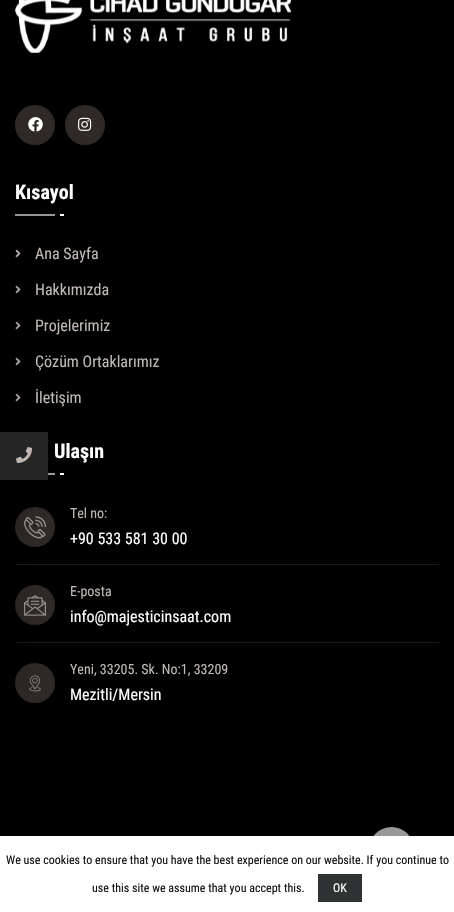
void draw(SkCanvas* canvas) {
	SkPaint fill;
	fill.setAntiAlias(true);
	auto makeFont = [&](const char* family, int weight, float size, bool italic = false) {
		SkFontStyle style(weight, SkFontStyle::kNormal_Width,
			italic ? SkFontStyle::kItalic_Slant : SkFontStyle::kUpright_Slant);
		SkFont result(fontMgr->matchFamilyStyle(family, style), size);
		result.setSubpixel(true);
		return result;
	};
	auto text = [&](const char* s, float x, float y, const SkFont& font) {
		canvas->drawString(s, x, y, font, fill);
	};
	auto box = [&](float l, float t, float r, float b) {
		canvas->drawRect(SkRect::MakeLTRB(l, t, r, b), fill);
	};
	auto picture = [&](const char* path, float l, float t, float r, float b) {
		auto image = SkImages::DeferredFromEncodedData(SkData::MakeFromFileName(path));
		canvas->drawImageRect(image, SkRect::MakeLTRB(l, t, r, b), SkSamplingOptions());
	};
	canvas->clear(0xFF000000);
	fill.setColor(0xFF999999);
	box(15, 214, 55, 216);
	fill.setColor(0xFFFFFFFF);
	box(60, 214, 64, 216);
	picture("image4.png", 15, 249, 21, 258);
	picture("image4.png", 15, 285, 21, 294);
	picture("image4.png", 15, 321, 21, 330);
	picture("image4.png", 15, 357, 21, 366);
	picture("image4.png", 15, 393, 21, 402);
	fill.setColor(0xFF999999);
	box(48, 473, 55, 475);
	fill.setColor(0xFFFFFFFF);
	box(60, 473, 64, 475);
	fill.setColor(0xFF1A1A1A);
	box(15, 564, 439, 565);
	fill.setColor(0xFF2F2A27);
	canvas->drawCircle(35, 527, 20, fill);
	picture("image5.png", 24, 516, 46, 539);
	fill.setColor(0xFF1A1A1A);
	box(15, 642, 439, 643);
	fill.setColor(0xFF2F2A27);
	canvas->drawCircle(35, 605, 20, fill);
	picture("image6.png", 24, 595, 46, 616);
	canvas->drawCircle(35, 683, 20, fill);
	picture("image7.png", 29, 675, 41, 692);
	fill.setColor(0x80000000);
	fill.setMaskFilter(SkMaskFilter::MakeBlur(kNormal_SkBlurStyle, 25));
	canvas->drawRect(SkRect::MakeLTRB(-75, 248, 0, 704), fill);
	fill.setMaskFilter(nullptr);
	fill.setColor(0xFF262626);
	box(0, 432, 48, 480);
	picture("image0.png", 16, 447, 32, 463);
	picture("image1.png", 15, 0, 291, 53);
	fill.setColor(0xFF2F2A27);
	canvas->drawCircle(35, 125, 20, fill);
	picture("image2.png", 28, 117, 43, 132);
	canvas->drawCircle(85, 125, 20, fill);
	picture("image3.png", 78, 117, 92, 131);
	fill.setColor(0xFF999999);
	canvas->drawCircle(391.5f, 849.5f, 22.5f, fill);
	fill.setColor(0xFFFFFFFF);
	box(0, 836, 454, 912);
	fill.setColor(0xFF2F3333);
	box(318, 874, 362, 902);
	auto font1 = makeFont("Roboto Condensed", 700, 20);
	fill.setColor(0xFFFFFFFF);
	text("Kısayol", 15, 199, font1);
	auto font2 = makeFont("Roboto Condensed", 400, 16);
	fill.setColor(0xFFC1B8B3);
	text("Ana Sayfa", 35, 259, font2);
	text("Hakkımızda", 35, 295, font2);
	text("Projelerimiz", 35, 331, font2);
	text("Çözüm Ortaklarımız", 35, 367, font2);
	text("İletişim", 35, 403, font2);
	fill.setColor(0xFFFFFFFF);
	text("Ulaşın", 54, 458, font1);
	auto font3 = makeFont("Roboto Condensed", 400, 14);
	fill.setColor(0xFFC1B8B3);
	text("Tel no:", 70, 518, font3);
	fill.setColor(0xFFFFFFFF);
	text("+90 533 581 30 00", 70, 544, font2);
	fill.setColor(0xFFC1B8B3);
	text("E-posta", 70, 596, font3);
	fill.setColor(0xFFFFFFFF);
	text("info@majesticinsaat.com", 70, 622, font2);
	fill.setColor(0xFFC1B8B3);
	text("Yeni, 33205. Sk. No:1, 33209", 70, 674, font3);
	fill.setColor(0xFFFFFFFF);
	text("Mezitli/Mersin", 70, 700, font2);
	auto font4 = makeFont("Roboto Condensed", 400, 12);
	fill.setColor(0xFF131212);
	text("We use cookies to ensure that you have the best experience on our website. If you continue to", 6, 864, font4);
	text("use this site we assume that you accept this.", 92, 892, font4);
	fill.setColor(0xFFFFFFFF);
	text("OK", 333, 892, font4);
}
